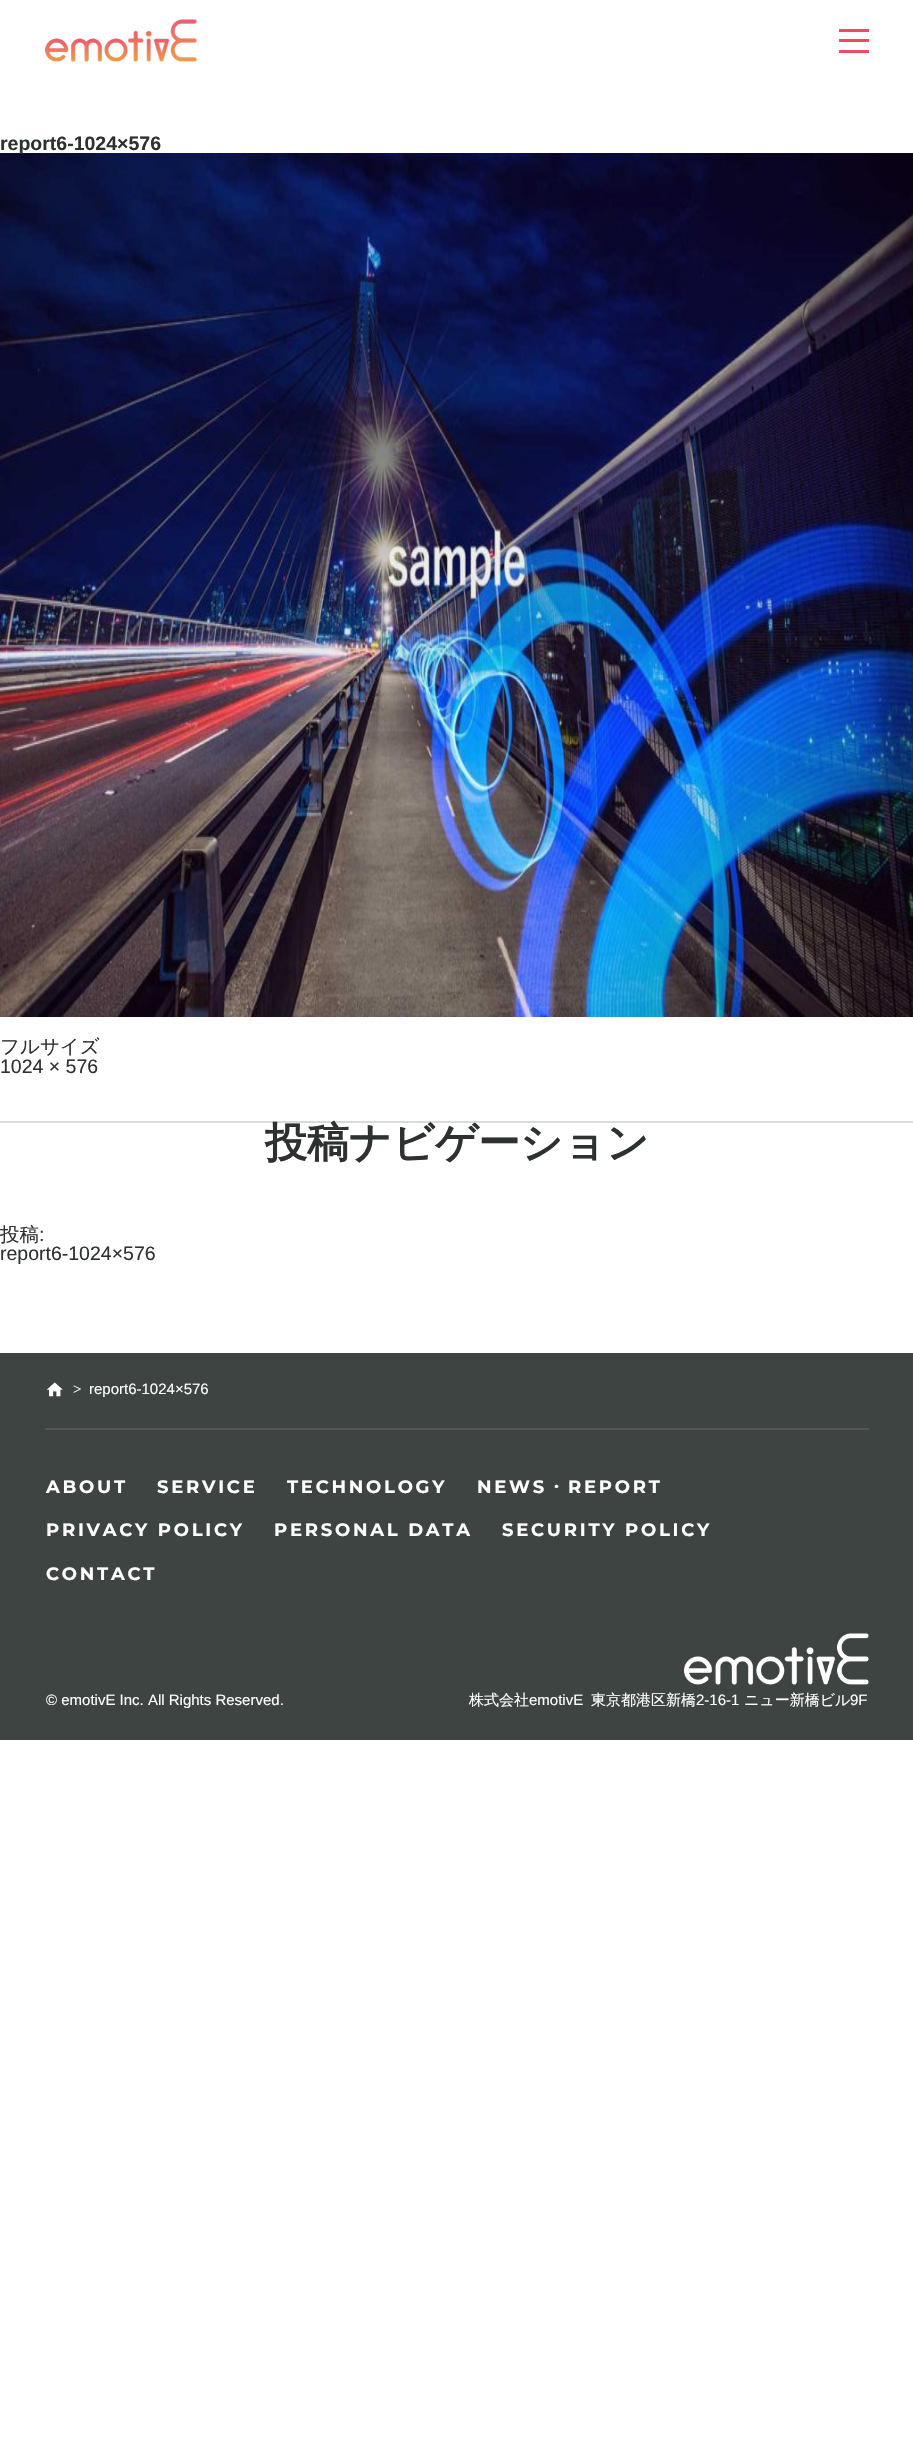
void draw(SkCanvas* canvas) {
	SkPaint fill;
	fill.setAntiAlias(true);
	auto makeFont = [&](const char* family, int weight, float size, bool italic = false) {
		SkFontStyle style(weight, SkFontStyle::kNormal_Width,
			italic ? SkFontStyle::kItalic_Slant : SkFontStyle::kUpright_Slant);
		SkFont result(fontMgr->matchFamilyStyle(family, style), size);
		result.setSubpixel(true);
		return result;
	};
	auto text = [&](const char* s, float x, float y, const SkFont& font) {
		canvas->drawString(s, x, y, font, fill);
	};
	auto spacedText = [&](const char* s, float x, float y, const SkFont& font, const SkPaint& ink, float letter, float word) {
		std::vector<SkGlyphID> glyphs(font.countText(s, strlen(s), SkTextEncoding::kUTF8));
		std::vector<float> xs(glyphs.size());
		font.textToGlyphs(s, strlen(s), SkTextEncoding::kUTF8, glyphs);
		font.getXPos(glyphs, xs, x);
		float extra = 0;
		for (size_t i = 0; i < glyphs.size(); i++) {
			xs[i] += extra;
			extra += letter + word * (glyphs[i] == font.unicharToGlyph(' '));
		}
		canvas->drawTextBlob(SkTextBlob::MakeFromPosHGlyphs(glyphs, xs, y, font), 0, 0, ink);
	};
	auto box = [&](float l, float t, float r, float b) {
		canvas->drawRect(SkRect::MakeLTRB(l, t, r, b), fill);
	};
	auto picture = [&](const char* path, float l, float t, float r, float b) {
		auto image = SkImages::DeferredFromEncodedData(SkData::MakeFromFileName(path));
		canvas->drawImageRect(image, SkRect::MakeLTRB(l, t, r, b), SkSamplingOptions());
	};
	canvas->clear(0xFFFFFFFF);
	picture("image0.png", 45, 19, 197, 62);
	fill.setColor(0xFFEB4C63);
	box(839, 29, 869, 32);
	box(839, 39, 869, 42);
	box(839, 50, 869, 53);
	fill.setColor(0xFFD7DBD9);
	box(0, 1121, 913, 1123);
	picture("image1.png", 0, 153, 913, 1017);
	fill.setColor(0xFF3D4441);
	box(0, 1353, 913, 1740);
	fill.setColor(0xFF555555);
	box(45, 1428, 869, 1430);
	picture("image2.png", 46, 1382, 63, 1397);
	picture("image3.png", 684, 1633, 869, 1685);
	auto font1 = makeFont("Liberation Sans", 700, 19.5f);
	fill.setColor(0xFF2D3230);
	text("report6-1024×576", 0, 150, font1);
	auto font2 = makeFont("WenQuanYi Zen Hei", 500, 19.5f);
	text("フルサイズ", 0, 1053, font2);
	auto font3 = makeFont("Liberation Sans", 400, 19.5f);
	text("1024 × 576", 0, 1073, font3);
	auto font4 = makeFont("WenQuanYi Zen Hei", 700, 42);
	text("投稿ナビゲーション", 265, 1157, font4);
	text("投稿", 0, 1241, font2);
	text(":", 39, 1241, font3);
	text("report6-1024×576", 0, 1260, font3);
	auto font5 = makeFont("Liberation Serif", 400, 15);
	fill.setColor(0xFFFFFFFF);
	text(">", 73, 1394, font5);
	auto font6 = makeFont("Liberation Sans", 400, 15);
	text("report6-1024×576", 89, 1394, font6);
	auto font7 = makeFont("Montserrat", 100, 18);
	spacedText("ABOUT", 46, 1493, font7, fill, 2.75f, 0);
	spacedText("SERVICE", 157, 1493, font7, fill, 2.75f, 0);
	spacedText("TECHNOLOGY", 287, 1493, font7, fill, 2.75f, 0);
	spacedText("NEWS", 477, 1493, font7, fill, 2.75f, 0);
	auto font8 = makeFont("WenQuanYi Zen Hei", 700, 18);
	spacedText("・", 547, 1493, font8, fill, 2.75f, 0);
	spacedText("REPORT", 568, 1493, font7, fill, 2.75f, 0);
	spacedText("PRIVACY POLICY", 46, 1536, font7, fill, 2.75f, 0);
	spacedText("PERSONAL DATA", 274, 1536, font7, fill, 2.75f, 0);
	spacedText("SECURITY POLICY", 502, 1536, font7, fill, 2.75f, 0);
	spacedText("CONTACT", 46, 1580, font7, fill, 2.75f, 0);
	text("© emotivE Inc. All Rights Reserved.", 46, 1705, font6);
	auto font9 = makeFont("WenQuanYi Zen Hei", 500, 15);
	text("株式会社", 469, 1705, font9);
	text("emotivE", 529, 1705, font6);
	text("東京都港区新橋", 591, 1705, font9);
	text("2-16-1", 696, 1705, font6);
	text("ニュー新橋ビル", 744, 1705, font9);
	text("9F", 850, 1705, font6);
}
